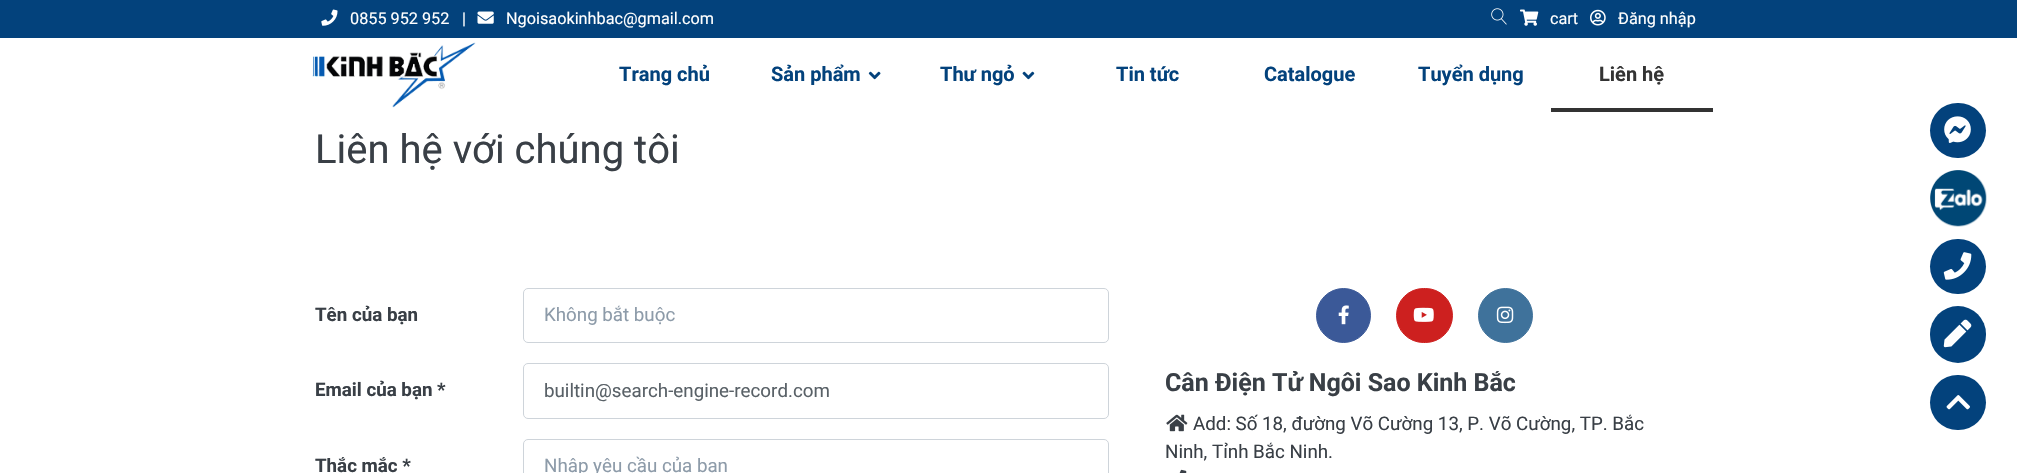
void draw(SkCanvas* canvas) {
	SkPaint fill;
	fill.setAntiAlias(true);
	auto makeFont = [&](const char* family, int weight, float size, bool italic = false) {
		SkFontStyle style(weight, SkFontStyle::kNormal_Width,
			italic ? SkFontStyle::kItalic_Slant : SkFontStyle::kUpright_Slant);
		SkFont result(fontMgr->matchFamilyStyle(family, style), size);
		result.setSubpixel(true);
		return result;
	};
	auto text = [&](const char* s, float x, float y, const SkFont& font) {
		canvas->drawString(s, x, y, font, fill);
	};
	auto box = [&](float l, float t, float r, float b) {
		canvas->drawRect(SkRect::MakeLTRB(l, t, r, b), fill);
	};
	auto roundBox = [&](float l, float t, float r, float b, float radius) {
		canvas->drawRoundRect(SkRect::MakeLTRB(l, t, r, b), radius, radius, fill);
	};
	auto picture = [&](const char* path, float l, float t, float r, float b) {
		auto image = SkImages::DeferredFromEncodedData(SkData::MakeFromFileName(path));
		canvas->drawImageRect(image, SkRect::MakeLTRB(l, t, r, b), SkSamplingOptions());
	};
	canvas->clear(0xFFFFFFFF);
	fill.setColor(0xFF03427C);
	box(0, 0, 2017, 38);
	picture("image0.png", 321, 9, 338, 26);
	picture("image1.png", 477, 11, 494, 24);
	picture("image2.png", 1491, 8, 1507, 25);
	picture("image3.png", 1520, 9, 1539, 26);
	picture("image4.png", 1590, 9, 1606, 26);
	picture("image5.png", 312, 42, 476, 108);
	picture("image6.png", 868, 71, 881, 80);
	picture("image7.png", 1022, 71, 1035, 80);
	fill.setColor(0xFF333333);
	box(1551, 108, 1713, 112);
	fill.setStyle(SkPaint::kStroke_Style);
	fill.setStrokeWidth(1);
	fill.setColor(0xFFCED4DA);
	canvas->drawRoundRect(SkRect::MakeLTRB(523.5f, 288.5f, 1108.5f, 342.5f), 4.5f, 4.5f, fill);
	canvas->drawRoundRect(SkRect::MakeLTRB(523.5f, 363.5f, 1108.5f, 418.5f), 4.5f, 4.5f, fill);
	canvas->drawRoundRect(SkRect::MakeLTRB(523.5f, 439.5f, 1108.5f, 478.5f), 4.5f, 4.5f, fill);
	fill.setStyle(SkPaint::kFill_Style);
	fill.setColor(0xFF3B5998);
	canvas->drawCircle(1343.5f, 315.5f, 27, fill);
	fill.setStyle(SkPaint::kStroke_Style);
	canvas->drawCircle(1343.5f, 315.5f, 27, fill);
	picture("image8.png", 1338, 305, 1349, 325);
	fill.setStyle(SkPaint::kFill_Style);
	fill.setColor(0xFFCD201F);
	canvas->drawRoundRect(SkRect::MakeLTRB(1396.5f, 288.5f, 1452.5f, 342.5f), 27, 27, fill);
	fill.setStyle(SkPaint::kStroke_Style);
	canvas->drawRoundRect(SkRect::MakeLTRB(1396.5f, 288.5f, 1452.5f, 342.5f), 27, 27, fill);
	picture("image9.png", 1413, 307, 1434, 322);
	fill.setStyle(SkPaint::kFill_Style);
	fill.setColor(0xFF3F729B);
	canvas->drawCircle(1505.5f, 315.5f, 27, fill);
	fill.setStyle(SkPaint::kStroke_Style);
	canvas->drawCircle(1505.5f, 315.5f, 27, fill);
	picture("image10.png", 1496, 306, 1514, 324);
	picture("image11.png", 1166, 414, 1188, 432);
	picture("image12.png", 1179, 469, 1187, 473);
	fill.setStyle(SkPaint::kFill_Style);
	fill.setColor(0xFF03427C);
	roundBox(1930, 103, 1986, 158, 27.5f);
	picture("image13.png", 1944, 116, 1971, 143);
	picture("image14.png", 1930, 170, 1987, 227);
	roundBox(1930, 239, 1986, 294, 27.5f);
	picture("image15.png", 1943, 252, 1972, 280);
	roundBox(1930, 306, 1986, 363, 28);
	picture("image16.png", 1943, 319, 1972, 348);
	roundBox(1930, 375, 1986, 430, 27.5f);
	picture("image17.png", 1946, 395, 1970, 410);
	auto font1 = makeFont("Roboto", 400, 16.25f);
	fill.setColor(0xFFFFFFFF);
	text("0855 952 952", 350, 24, font1);
	text("|", 462, 24, font1);
	text("Ngoisaokinhbac@gmail.com", 506, 24, font1);
	text("cart", 1550, 24, font1);
	text("Đăng nhập", 1618, 24, font1);
	auto font2 = makeFont("Roboto", 700, 20);
	fill.setColor(0xFF03427C);
	text("Trang chủ", 619, 81, font2);
	text("Sản phẩm", 771, 81, font2);
	text("Thư ngỏ", 940, 81, font2);
	text("Tin tức", 1116, 81, font2);
	text("Catalogue", 1264, 81, font2);
	text("Tuyển dụng", 1418, 81, font2);
	fill.setColor(0xFF333333);
	text("Liên hệ", 1599, 81, font2);
	auto font3 = makeFont("Roboto", 400, 40);
	fill.setColor(0xFF393F46);
	text("Liên hệ với chúng tôi", 315, 163, font3);
	auto font4 = makeFont("Roboto", 700, 18.75f);
	text("Tên của bạn", 315, 321, font4);
	auto font5 = makeFont("Roboto", 400, 18.75f);
	fill.setColor(0xFF8D9BA9);
	text("Không bắt buộc", 544, 321, font5);
	fill.setColor(0xFF393F46);
	text("Email của bạn *", 315, 396, font4);
	fill.setColor(0xFF596167);
	text("builtin@search-engine-record.com", 544, 397, font5);
	fill.setColor(0xFF393F46);
	text("Thắc mắc *", 315, 472, font4);
	fill.setColor(0xFF8D9BA9);
	text("Nhập yêu cầu của bạn", 544, 472, font5);
	auto font6 = makeFont("Roboto", 700, 25);
	fill.setColor(0xFF393F46);
	text("Cân Điện Tử Ngôi Sao Kinh Bắc", 1165, 391, font6);
	text("Add: Số 18, đường Võ Cường 13, P. Võ Cường, TP. Bắc", 1193, 430, font5);
	text("Ninh, Tỉnh Bắc Ninh.", 1165, 458, font5);
}
